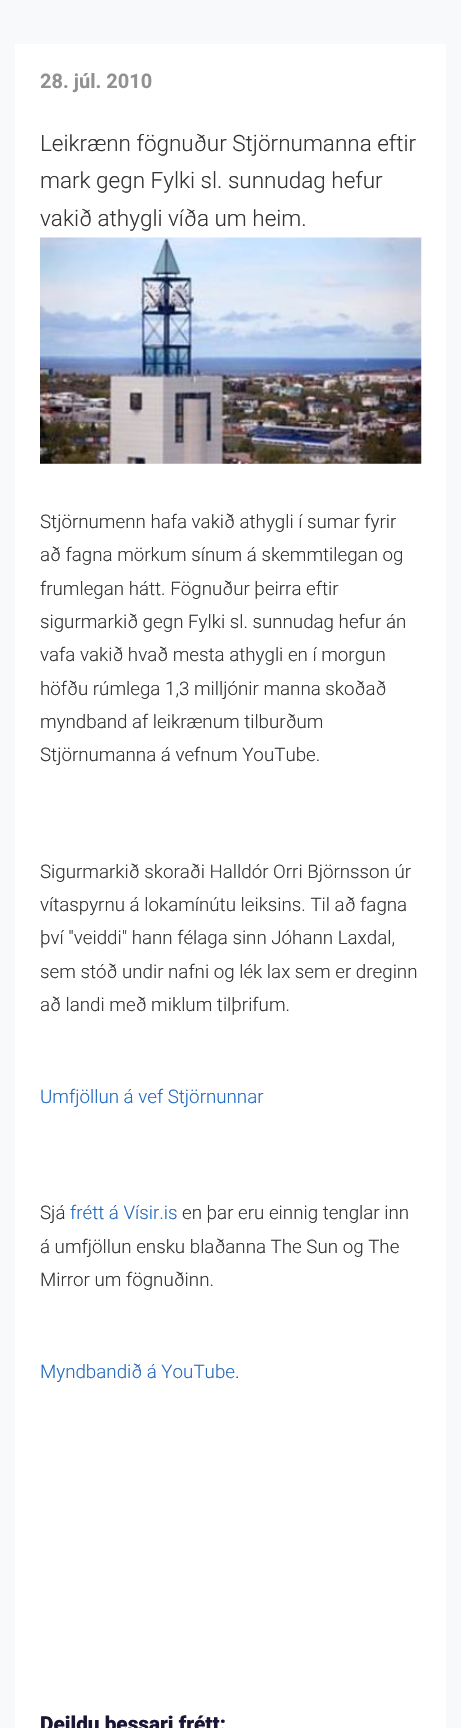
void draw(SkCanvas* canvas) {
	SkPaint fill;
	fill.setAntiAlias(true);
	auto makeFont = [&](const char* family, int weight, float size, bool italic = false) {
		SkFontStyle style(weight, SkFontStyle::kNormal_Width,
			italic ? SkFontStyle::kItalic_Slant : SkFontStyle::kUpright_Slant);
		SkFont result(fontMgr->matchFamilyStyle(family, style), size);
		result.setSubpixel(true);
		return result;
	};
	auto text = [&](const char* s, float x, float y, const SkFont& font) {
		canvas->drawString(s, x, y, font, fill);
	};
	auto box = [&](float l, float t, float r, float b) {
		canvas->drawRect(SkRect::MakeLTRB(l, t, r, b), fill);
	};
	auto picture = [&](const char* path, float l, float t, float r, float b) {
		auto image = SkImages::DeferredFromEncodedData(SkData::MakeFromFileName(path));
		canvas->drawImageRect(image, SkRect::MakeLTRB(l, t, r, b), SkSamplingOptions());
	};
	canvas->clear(0xFFF7F9FB);
	fill.setColor(0xFFFFFFFF);
	box(15, 44, 446, 1728);
	picture("image0.png", 40, 237, 422, 464);
	auto font1 = makeFont("Roboto", 700, 20);
	fill.setColor(0xFF919191);
	text("28. júl. 2010", 40, 88, font1);
	auto font2 = makeFont("Roboto", 300, 22.5f);
	fill.setColor(0xFF343434);
	text("Leikrænn fögnuður Stjörnumanna eftir", 40, 151, font2);
	text("mark gegn Fylki sl. sunnudag hefur", 40, 188, font2);
	text("vakið athygli víða um heim.", 40, 226, font2);
	auto font3 = makeFont("Roboto", 300, 18.75f);
	text("Stjörnumenn hafa vakið athygli í sumar fyrir", 40, 528, font3);
	text("að fagna mörkum sínum á skemmtilegan og", 40, 561, font3);
	text("frumlegan hátt. Fögnuður þeirra eftir", 40, 595, font3);
	text("sigurmarkið gegn Fylki sl. sunnudag hefur án", 40, 628, font3);
	text("vafa vakið hvað mesta athygli en í morgun", 40, 661, font3);
	text("höfðu rúmlega 1,3 milljónir manna skoðað", 40, 695, font3);
	text("myndband af leikrænum tilburðum", 40, 728, font3);
	text("Stjörnumanna á vefnum YouTube.", 40, 761, font3);
	text("Sigurmarkið skoraði Halldór Orri Björnsson úr", 40, 878, font3);
	text("vítaspyrnu á lokamínútu leiksins. Til að fagna", 40, 911, font3);
	text("því \"veiddi\" hann félaga sinn Jóhann Laxdal,", 40, 944, font3);
	text("sem stóð undir nafni og lék lax sem er dreginn", 40, 978, font3);
	text("að landi með miklum tilþrifum.", 40, 1011, font3);
	fill.setColor(0xFF2269BF);
	text("Umfjöllun á vef Stjörnunnar", 40, 1103, font3);
	fill.setColor(0xFF343434);
	text("Sjá", 40, 1219, font3);
	fill.setColor(0xFF2269BF);
	text("frétt á Vísir.is", 70, 1219, font3);
	fill.setColor(0xFF343434);
	text("en þar eru einnig tenglar inn", 182, 1219, font3);
	text("á umfjöllun ensku blaðanna The Sun og The", 40, 1253, font3);
	text("Mirror um fögnuðinn.", 40, 1286, font3);
	fill.setColor(0xFF2269BF);
	text("Myndbandið á YouTube", 40, 1378, font3);
	fill.setColor(0xFF343434);
	text(".", 235, 1378, font3);
	auto font4 = makeFont("Roboto", 900, 20.75f);
	fill.setColor(0xFF1A1736);
	text("Deildu þessari frétt:", 40, 1731, font4);
}
